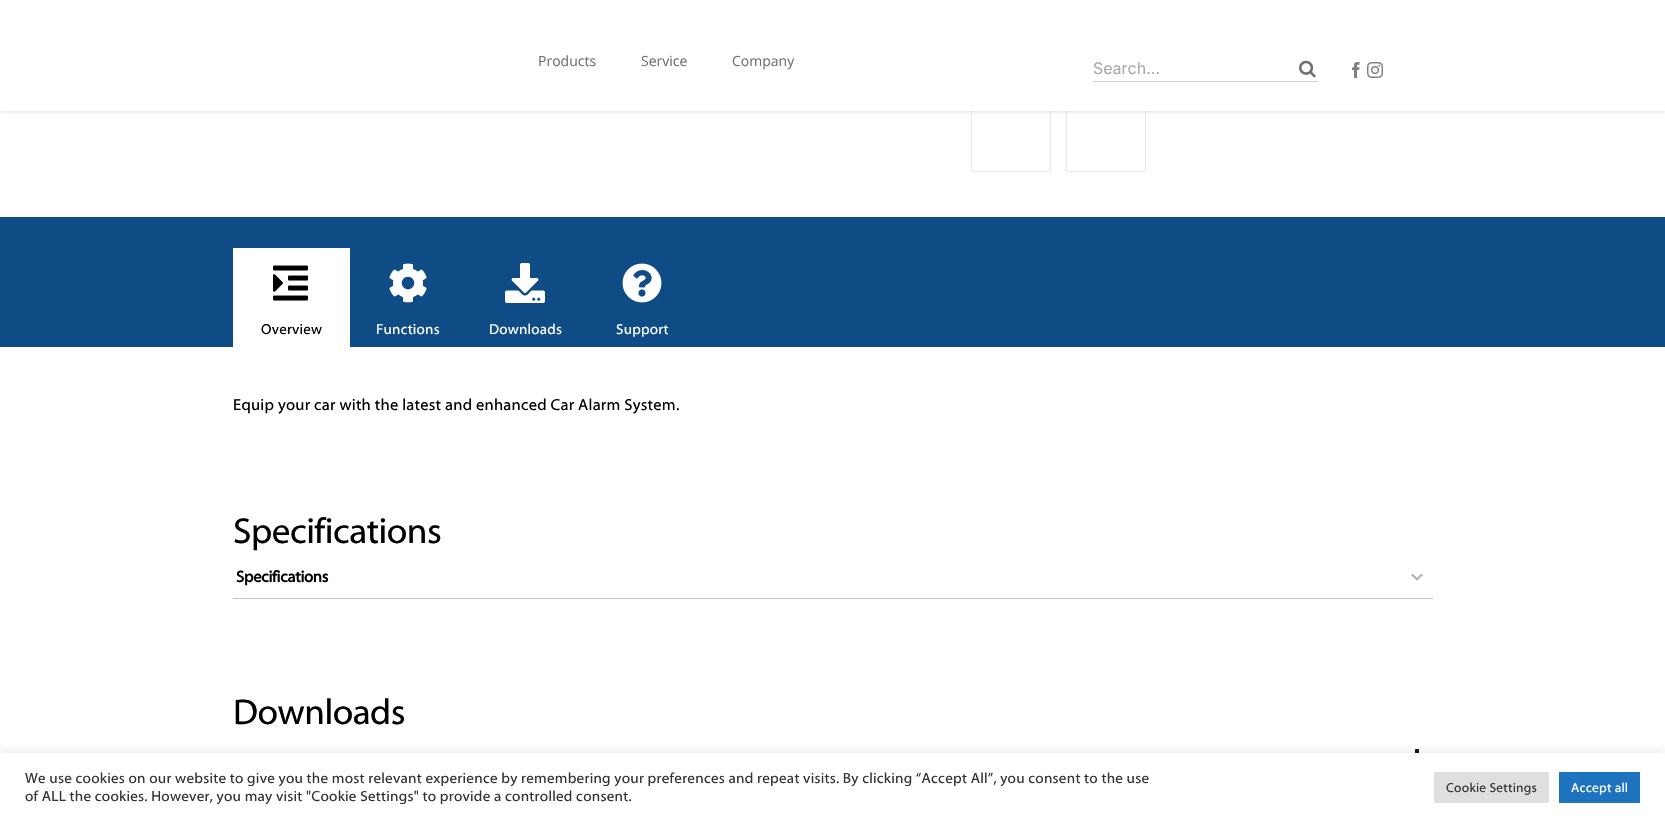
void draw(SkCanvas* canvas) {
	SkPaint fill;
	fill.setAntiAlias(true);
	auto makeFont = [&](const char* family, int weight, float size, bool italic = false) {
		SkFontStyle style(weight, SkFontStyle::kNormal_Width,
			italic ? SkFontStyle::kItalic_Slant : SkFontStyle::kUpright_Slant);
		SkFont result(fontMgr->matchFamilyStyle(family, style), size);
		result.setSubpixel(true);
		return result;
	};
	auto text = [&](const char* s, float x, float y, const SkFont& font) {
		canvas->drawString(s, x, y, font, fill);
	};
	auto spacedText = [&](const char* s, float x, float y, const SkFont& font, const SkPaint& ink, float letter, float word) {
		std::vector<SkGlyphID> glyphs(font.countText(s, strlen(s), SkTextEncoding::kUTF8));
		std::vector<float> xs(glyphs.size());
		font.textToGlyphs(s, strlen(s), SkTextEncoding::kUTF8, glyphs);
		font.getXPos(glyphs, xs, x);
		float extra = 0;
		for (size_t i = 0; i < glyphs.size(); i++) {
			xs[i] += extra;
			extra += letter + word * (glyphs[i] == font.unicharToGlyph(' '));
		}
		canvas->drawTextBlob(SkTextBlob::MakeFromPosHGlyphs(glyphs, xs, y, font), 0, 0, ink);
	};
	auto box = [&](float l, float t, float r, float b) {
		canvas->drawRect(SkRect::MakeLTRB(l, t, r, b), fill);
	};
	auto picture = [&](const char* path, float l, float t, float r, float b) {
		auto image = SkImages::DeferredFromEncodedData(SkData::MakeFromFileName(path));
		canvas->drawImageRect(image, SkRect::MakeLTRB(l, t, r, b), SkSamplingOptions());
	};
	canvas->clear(0xFFFFFFFF);
	fill.setStyle(SkPaint::kStroke_Style);
	fill.setStrokeWidth(1);
	fill.setColor(0xFFEAEAEA);
	canvas->drawRect(SkRect::MakeLTRB(971.5f, 92.5f, 1050.5f, 171.5f), fill);
	canvas->drawRect(SkRect::MakeLTRB(1066.5f, 92.5f, 1145.5f, 171.5f), fill);
	fill.setStyle(SkPaint::kFill_Style);
	fill.setColor(0x1F000000);
	fill.setMaskFilter(SkMaskFilter::MakeBlur(kNormal_SkBlurStyle, 1.5f));
	canvas->drawRect(SkRect::MakeLTRB(0, 1, 1665, 112), fill);
	fill.setMaskFilter(nullptr);
	fill.setColor(0xFFFFFFFF);
	box(0, 0, 1665, 111);
	fill.setColor(0xFFD0D0D0);
	box(1093, 81, 1318, 82);
	picture("image0.png", 1299, 60, 1316, 78);
	picture("image1.png", 1352, 62, 1360, 78);
	picture("image2.png", 1367, 62, 1383, 78);
	fill.setColor(0xFF0F4C86);
	box(0, 217, 1665, 347);
	fill.setColor(0xFFFFFFFF);
	box(233, 248, 350, 347);
	picture("image3.png", 273, 265, 308, 301);
	picture("image4.png", 389, 263, 427, 303);
	picture("image5.png", 505, 263, 545, 303);
	picture("image6.png", 622, 263, 662, 303);
	picture("image7.png", 1411, 573, 1423, 581);
	fill.setColor(0xFFC3C3C3);
	box(233, 598, 1433, 599);
	picture("image8.png", 1415, 749, 1419, 753);
	fill.setColor(0x4DACABAB);
	fill.setMaskFilter(SkMaskFilter::MakeBlur(kNormal_SkBlurStyle, 5));
	canvas->drawRect(SkRect::MakeLTRB(0, 752, 1665, 821), fill);
	fill.setMaskFilter(nullptr);
	fill.setColor(0xFFFFFFFF);
	box(0, 753, 1665, 822);
	fill.setColor(0xFFDEDFE0);
	box(1434, 772, 1549, 803);
	fill.setColor(0xFF1E73BE);
	box(1559, 772, 1640, 803);
	auto font1 = makeFont("Open Sans", 400, 14);
	fill.setColor(0xFF707070);
	text("Products", 538, 66, font1);
	text("Service", 641, 66, font1);
	text("Company", 732, 66, font1);
	auto font2 = makeFont("Inter", 400, 16);
	fill.setColor(0xFFAAA9A9);
	text("Search...", 1093, 74, font2);
	auto font3 = makeFont("Myriad", 400, 14.5f);
	fill.setColor(0xFF000000);
	spacedText("Overview", 261, 334, font3, fill, 0.24f, 0);
	fill.setColor(0xFFFFFFFF);
	spacedText("Functions", 376, 334, font3, fill, 0.24f, 0);
	spacedText("Downloads", 489, 334, font3, fill, 0.24f, 0);
	spacedText("Support", 616, 334, font3, fill, 0.24f, 0);
	auto font4 = makeFont("Myriad", 400, 16);
	fill.setColor(0xFF000000);
	spacedText("Equip your car with the latest and enhanced Car Alarm System.", 233, 410, font4, fill, 0.24f, 0);
	auto font5 = makeFont("Myriad", 400, 36);
	spacedText("Specifications", 233, 543, font5, fill, -0.5f, 0);
	auto font6 = makeFont("Myriad", 700, 16);
	spacedText("Specifications", 236, 582, font6, fill, -0.25f, 0);
	spacedText("Downloads", 233, 724, font5, fill, -0.5f, 0);
	auto font7 = makeFont("Myriad", 400, 14.67f);
	fill.setColor(0xFF333333);
	spacedText("We use cookies on our website to give you the most relevant experience by remembering your preferences and repeat visits. By clicking “Accept All”, you consent to the use", 25, 783, font7, fill, 0.24f, 0);
	spacedText("of ALL the cookies. However, you may visit \"Cookie Settings\" to provide a controlled consent.", 25, 801, font7, fill, 0.24f, 0);
	auto font8 = makeFont("Myriad", 400, 13);
	spacedText("Cookie Settings", 1446, 792, font8, fill, 0.24f, 0);
	fill.setColor(0xFFFFFFFF);
	spacedText("Accept all", 1571, 792, font8, fill, 0.24f, 0);
}
